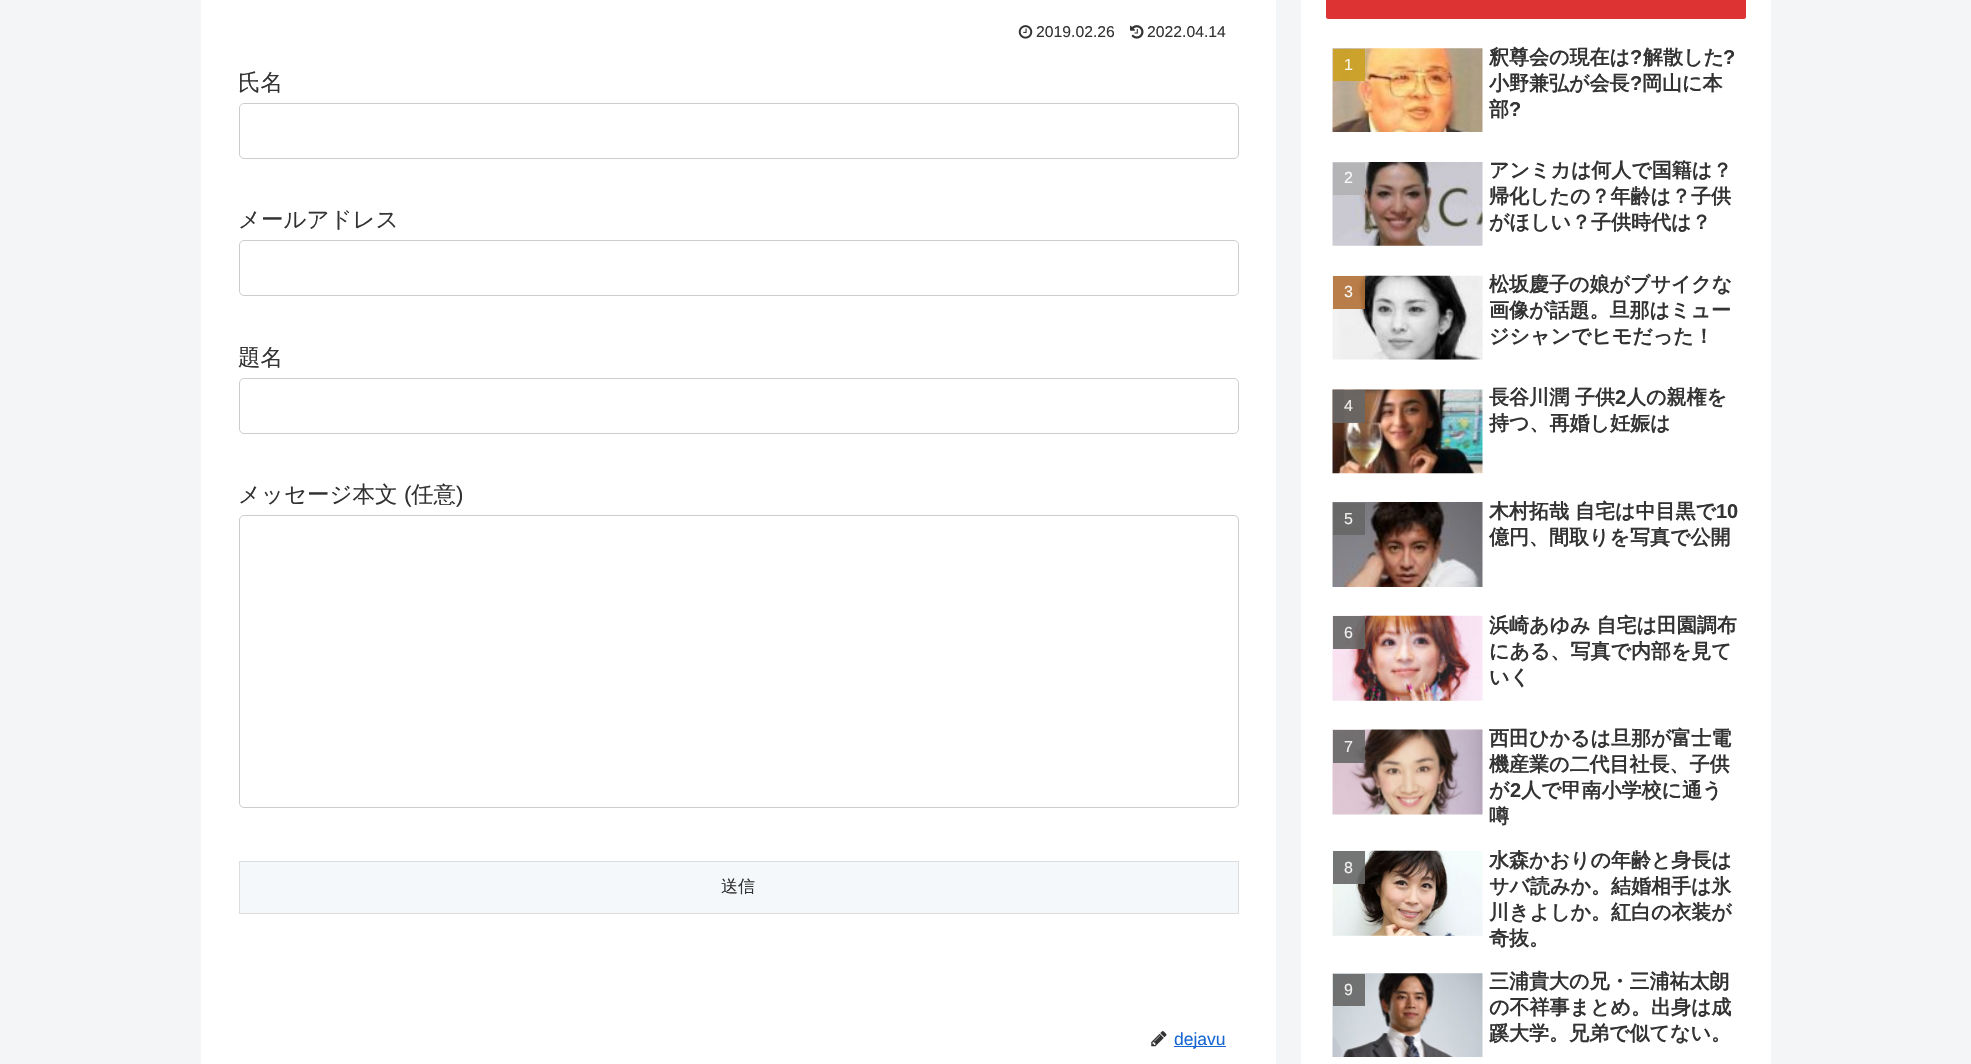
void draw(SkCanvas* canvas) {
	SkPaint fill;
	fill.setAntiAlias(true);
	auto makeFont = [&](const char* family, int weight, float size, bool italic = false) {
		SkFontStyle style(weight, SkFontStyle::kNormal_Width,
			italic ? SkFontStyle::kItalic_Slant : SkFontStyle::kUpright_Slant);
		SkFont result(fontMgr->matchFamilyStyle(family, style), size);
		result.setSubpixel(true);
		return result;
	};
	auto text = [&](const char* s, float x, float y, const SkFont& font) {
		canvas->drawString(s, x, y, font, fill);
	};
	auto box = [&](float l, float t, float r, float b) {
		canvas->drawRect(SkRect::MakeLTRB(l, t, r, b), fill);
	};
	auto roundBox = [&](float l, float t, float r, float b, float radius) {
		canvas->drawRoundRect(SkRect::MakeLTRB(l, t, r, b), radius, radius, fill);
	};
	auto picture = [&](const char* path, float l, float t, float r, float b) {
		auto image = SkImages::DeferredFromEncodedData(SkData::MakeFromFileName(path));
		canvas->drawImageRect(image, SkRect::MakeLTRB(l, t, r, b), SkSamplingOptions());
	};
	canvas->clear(0xFFF4F5F7);
	fill.setColor(0xFFFFFFFF);
	box(201, 0, 1276, 1064);
	picture("image0.png", 1018, 25, 1033, 39);
	picture("image1.png", 1130, 25, 1144, 39);
	fill.setStyle(SkPaint::kStroke_Style);
	fill.setStrokeWidth(1);
	fill.setColor(0xFFCCCCCC);
	canvas->drawRoundRect(SkRect::MakeLTRB(239.5f, 103.5f, 1238.5f, 158.5f), 4.5f, 4.5f, fill);
	canvas->drawRoundRect(SkRect::MakeLTRB(239.5f, 240.5f, 1238.5f, 295.5f), 4.5f, 4.5f, fill);
	canvas->drawRoundRect(SkRect::MakeLTRB(239.5f, 378.5f, 1238.5f, 433.5f), 4.5f, 4.5f, fill);
	canvas->drawRoundRect(SkRect::MakeLTRB(239.5f, 515.5f, 1238.5f, 807.5f), 4.5f, 4.5f, fill);
	fill.setStyle(SkPaint::kFill_Style);
	fill.setColor(0xFFF5F8FA);
	canvas->drawRect(SkRect::MakeLTRB(239.5f, 861.5f, 1238.5f, 913.5f), fill);
	fill.setStyle(SkPaint::kStroke_Style);
	fill.setColor(0xFFDDDDDD);
	canvas->drawRect(SkRect::MakeLTRB(239.5f, 861.5f, 1238.5f, 913.5f), fill);
	picture("image2.png", 1151, 1031, 1167, 1047);
	fill.setStyle(SkPaint::kFill_Style);
	fill.setColor(0xFF1967D2);
	box(1174, 1046, 1226, 1047);
	fill.setColor(0xFFFFFFFF);
	box(1301, 0, 1771, 1064);
	fill.setColor(0xFFDD3333);
	roundBox(1326, -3, 1746, 19, 2.5f);
	picture("image3.png", 1332, 48, 1483, 132);
	fill.setColor(0xE6CCA11F);
	box(1333, 49, 1365, 81);
	picture("image4.png", 1332, 162, 1483, 246);
	fill.setColor(0xE6B1B1B3);
	box(1333, 163, 1365, 195);
	picture("image5.png", 1332, 275, 1483, 360);
	fill.setColor(0xE6B37036);
	box(1333, 276, 1365, 309);
	picture("image6.png", 1332, 389, 1483, 474);
	fill.setColor(0xE6666666);
	box(1333, 390, 1365, 423);
	picture("image7.png", 1332, 502, 1483, 587);
	box(1333, 503, 1365, 535);
	picture("image8.png", 1332, 615, 1483, 701);
	box(1333, 616, 1365, 649);
	picture("image9.png", 1332, 729, 1483, 815);
	box(1333, 730, 1365, 763);
	picture("image10.png", 1332, 850, 1483, 936);
	box(1333, 851, 1365, 884);
	picture("image11.png", 1332, 973, 1483, 1057);
	box(1333, 974, 1365, 1006);
	auto font1 = makeFont("Liberation Sans", 400, 15.75f);
	fill.setColor(0xFF333333);
	text("2019.02.26", 1036, 37, font1);
	text("2022.04.14", 1147, 37, font1);
	auto font2 = makeFont("WenQuanYi Zen Hei", 500, 22.5f);
	text("氏名", 238, 90, font2);
	text("メールアドレス", 238, 227, font2);
	text("題名", 238, 365, font2);
	text("メッセージ本文", 238, 502, font2);
	auto font3 = makeFont("Liberation Sans", 400, 22.5f);
	text("(", 404, 502, font3);
	text("任意", 411, 502, font2);
	text(")", 456, 502, font3);
	auto font4 = makeFont("WenQuanYi Zen Hei", 500, 17);
	text("送信", 721, 892, font4);
	auto font5 = makeFont("Liberation Sans", 400, 17.5f);
	fill.setColor(0xFF1967D2);
	text("dejavu", 1174, 1045, font5);
	auto font6 = makeFont("Liberation Sans", 400, 16);
	fill.setColor(0xFFFAF6EA);
	text("1", 1344, 70, font6);
	auto font7 = makeFont("WenQuanYi Zen Hei", 700, 20);
	fill.setColor(0xFF333333);
	text("釈尊会の現在は", 1489, 64, font7);
	auto font8 = makeFont("Liberation Sans", 700, 20);
	text("?", 1630, 64, font8);
	text("解散した", 1643, 64, font7);
	text("?", 1723, 64, font8);
	text("小野兼弘が会長", 1489, 90, font7);
	text("?", 1630, 90, font8);
	text("岡山に本", 1642, 90, font7);
	text("部", 1489, 116, font7);
	text("?", 1509, 116, font8);
	fill.setColor(0xFFF9F9FA);
	text("2", 1344, 183, font6);
	fill.setColor(0xFF333333);
	text("アンミカは何人で国籍は？", 1489, 177, font7);
	text("帰化したの？年齢は？子供", 1489, 203, font7);
	text("がほしい？子供時代は？", 1489, 229, font7);
	fill.setColor(0xFFF9F9FA);
	text("3", 1344, 297, font6);
	fill.setColor(0xFF333333);
	text("松坂慶子の娘がブサイクな", 1489, 291, font7);
	text("画像が話題。旦那はミュー", 1489, 317, font7);
	text("ジシャンでヒモだった！", 1489, 343, font7);
	fill.setColor(0xFFF0F0EF);
	text("4", 1344, 411, font6);
	fill.setColor(0xFF333333);
	text("長谷川潤 子供", 1489, 404, font7);
	text("2", 1615, 404, font8);
	text("人の親権を", 1626, 404, font7);
	text("持つ、再婚し妊娠は", 1489, 430, font7);
	fill.setColor(0xFFF0F0EF);
	text("5", 1344, 524, font6);
	fill.setColor(0xFF333333);
	text("木村拓哉 自宅は中目黒で", 1489, 518, font7);
	text("10", 1716, 518, font8);
	text("億円、間取りを写真で公開", 1489, 544, font7);
	fill.setColor(0xFFF0F0EF);
	text("6", 1344, 638, font6);
	fill.setColor(0xFF333333);
	text("浜崎あゆみ 自宅は田園調布", 1489, 632, font7);
	text("にある、写真で内部を見て", 1489, 658, font7);
	text("いく", 1489, 684, font7);
	fill.setColor(0xFFF0F0EF);
	text("7", 1344, 752, font6);
	fill.setColor(0xFF333333);
	text("西田ひかるは旦那が富士電", 1489, 745, font7);
	text("機産業の二代目社長、子供", 1489, 771, font7);
	text("が", 1489, 797, font7);
	text("2", 1510, 797, font8);
	text("人で甲南小学校に通う", 1521, 797, font7);
	text("噂", 1489, 823, font7);
	fill.setColor(0xFFF0F0EF);
	text("8", 1344, 873, font6);
	fill.setColor(0xFF333333);
	text("水森かおりの年齢と身長は", 1489, 867, font7);
	text("サバ読みか。結婚相手は氷", 1489, 893, font7);
	text("川きよしか。紅白の衣装が", 1489, 919, font7);
	text("奇抜。", 1489, 945, font7);
	fill.setColor(0xFFF0F0EF);
	text("9", 1344, 995, font6);
	fill.setColor(0xFF333333);
	text("三浦貴大の兄・三浦祐太朗", 1489, 988, font7);
	text("の不祥事まとめ。出身は成", 1489, 1014, font7);
	text("蹊大学。兄弟で似てない。", 1489, 1040, font7);
}
